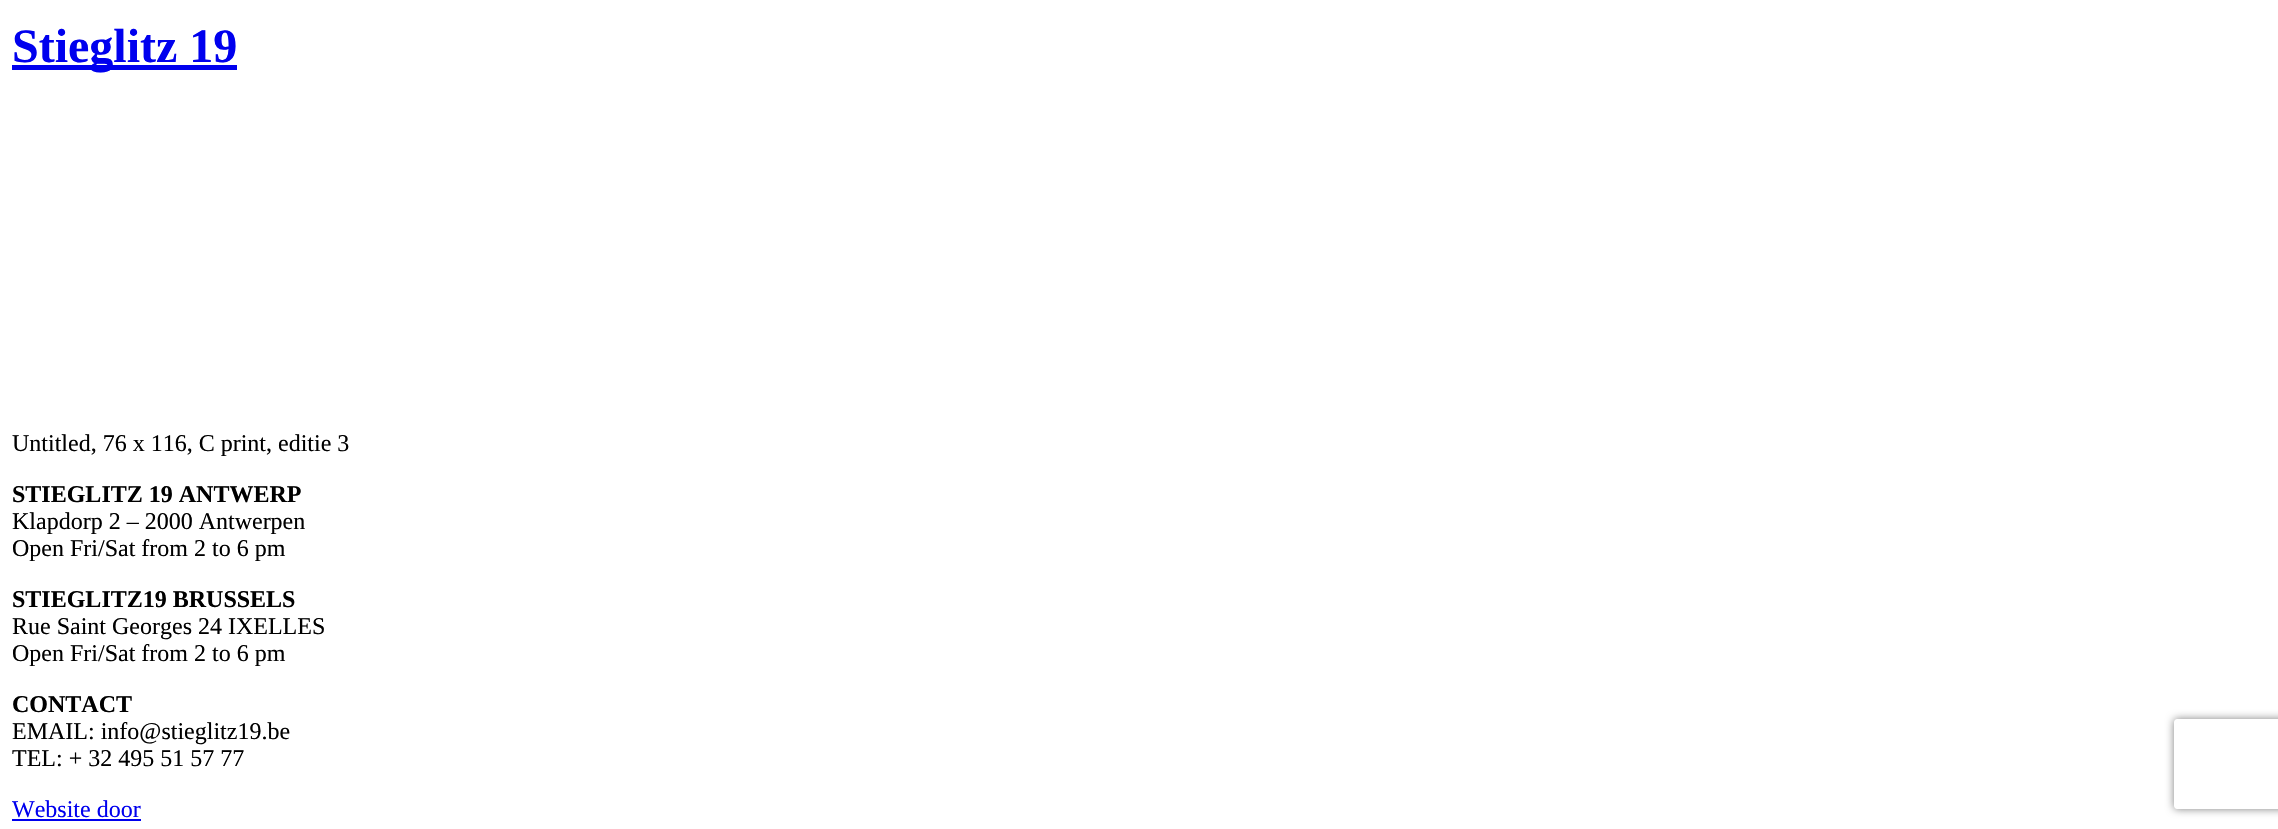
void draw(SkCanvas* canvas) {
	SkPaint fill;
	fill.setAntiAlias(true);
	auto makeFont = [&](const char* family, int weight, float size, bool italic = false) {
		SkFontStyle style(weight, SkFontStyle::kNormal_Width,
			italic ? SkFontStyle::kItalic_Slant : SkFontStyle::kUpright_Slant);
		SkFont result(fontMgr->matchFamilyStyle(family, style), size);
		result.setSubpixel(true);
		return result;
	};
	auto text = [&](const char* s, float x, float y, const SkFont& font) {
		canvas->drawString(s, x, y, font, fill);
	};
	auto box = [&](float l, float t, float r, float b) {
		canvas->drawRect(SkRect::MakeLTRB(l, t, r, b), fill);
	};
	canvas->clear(0xFFFFFFFF);
	fill.setColor(0xFF0000EE);
	box(12, 65, 237, 70);
	box(12, 819, 141, 821);
	canvas->save();
	canvas->clipPath(SkPathBuilder(SkPathFillType::kEvenOdd).moveTo(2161, 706).lineTo(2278, 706).lineTo(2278, 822).lineTo(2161, 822).close().moveTo(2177, 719).lineTo(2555, 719).cubicTo(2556.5f, 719, 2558, 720.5f, 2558, 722).lineTo(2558, 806).cubicTo(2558, 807.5f, 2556.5f, 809, 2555, 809).lineTo(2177, 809).cubicTo(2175.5f, 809, 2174, 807.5f, 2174, 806).lineTo(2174, 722).cubicTo(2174, 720.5f, 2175.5f, 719, 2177, 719).close().detach(), true);
	fill.setColor(0xFF808080);
	fill.setMaskFilter(SkMaskFilter::MakeBlur(kNormal_SkBlurStyle, 4));
	canvas->drawRoundRect(SkRect::MakeLTRB(2174, 719, 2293, 809), 3, 3, fill);
	fill.setMaskFilter(nullptr);
	canvas->restore();
	auto font1 = makeFont("Liberation Serif", 700, 48);
	fill.setColor(0xFF0000EE);
	text("Stieglitz 19", 12, 62, font1);
	auto font2 = makeFont("Liberation Serif", 400, 24);
	fill.setColor(0xFF000000);
	text("Untitled, 76 x 116, C print, editie 3", 12, 451, font2);
	auto font3 = makeFont("Liberation Serif", 700, 24);
	text("STIEGLITZ 19 ANTWERP", 12, 502, font3);
	text("Klapdorp 2 – 2000 Antwerpen", 12, 529, font2);
	text("Open Fri/Sat from 2 to 6 pm", 12, 556, font2);
	text("STIEGLITZ19 BRUSSELS", 12, 607, font3);
	text("Rue Saint Georges 24 IXELLES", 12, 634, font2);
	text("Open Fri/Sat from 2 to 6 pm", 12, 661, font2);
	text("CONTACT", 12, 712, font3);
	text("EMAIL: info@stieglitz19.be", 12, 739, font2);
	text("TEL: + 32 495 51 57 77", 12, 766, font2);
	fill.setColor(0xFF0000EE);
	text("Website door", 12, 817, font2);
}
